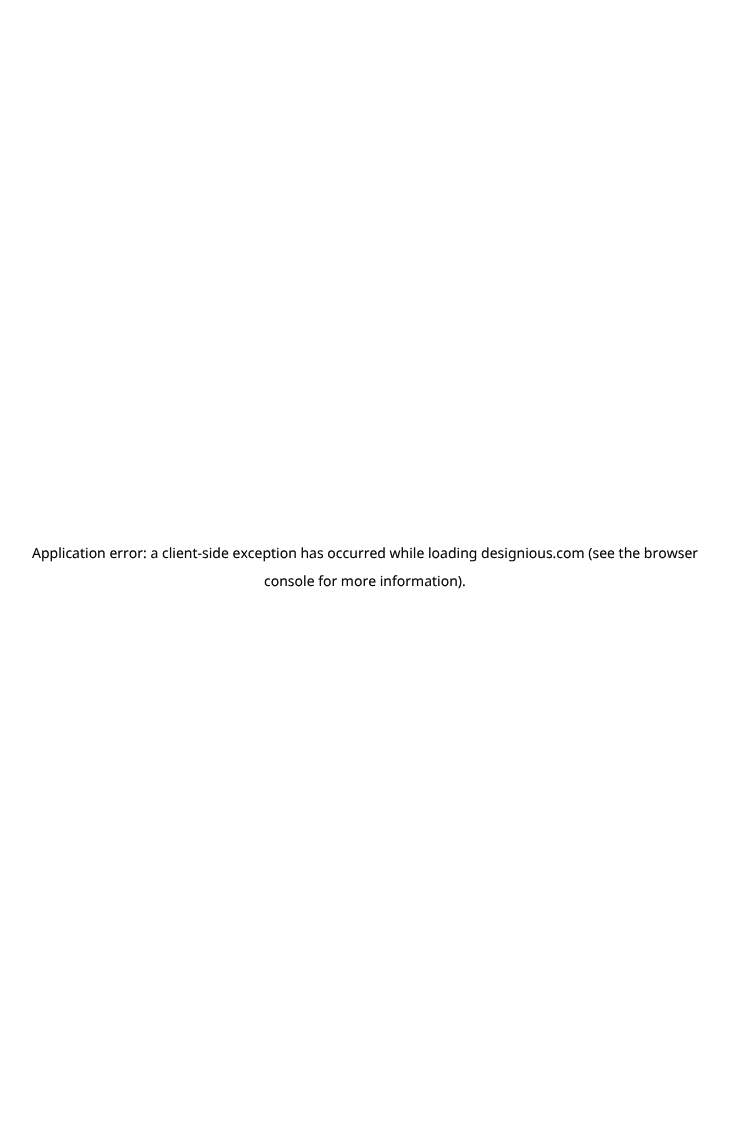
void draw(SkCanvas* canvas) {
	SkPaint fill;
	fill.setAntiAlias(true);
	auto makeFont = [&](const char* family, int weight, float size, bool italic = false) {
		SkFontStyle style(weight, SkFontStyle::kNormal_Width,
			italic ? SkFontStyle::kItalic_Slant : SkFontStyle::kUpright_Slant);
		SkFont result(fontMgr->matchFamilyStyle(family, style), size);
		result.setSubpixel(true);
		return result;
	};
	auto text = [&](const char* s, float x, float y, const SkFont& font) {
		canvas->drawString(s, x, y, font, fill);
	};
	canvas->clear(0xFFFFFFFF);
	auto font1 = makeFont("Noto Sans", 400, 14);
	fill.setColor(0xFF0A0A0A);
	text("Application error: a client-side exception has occurred while loading designious.com (see the browser", 32, 558, font1);
	text("console for more information).", 264, 586, font1);
}
